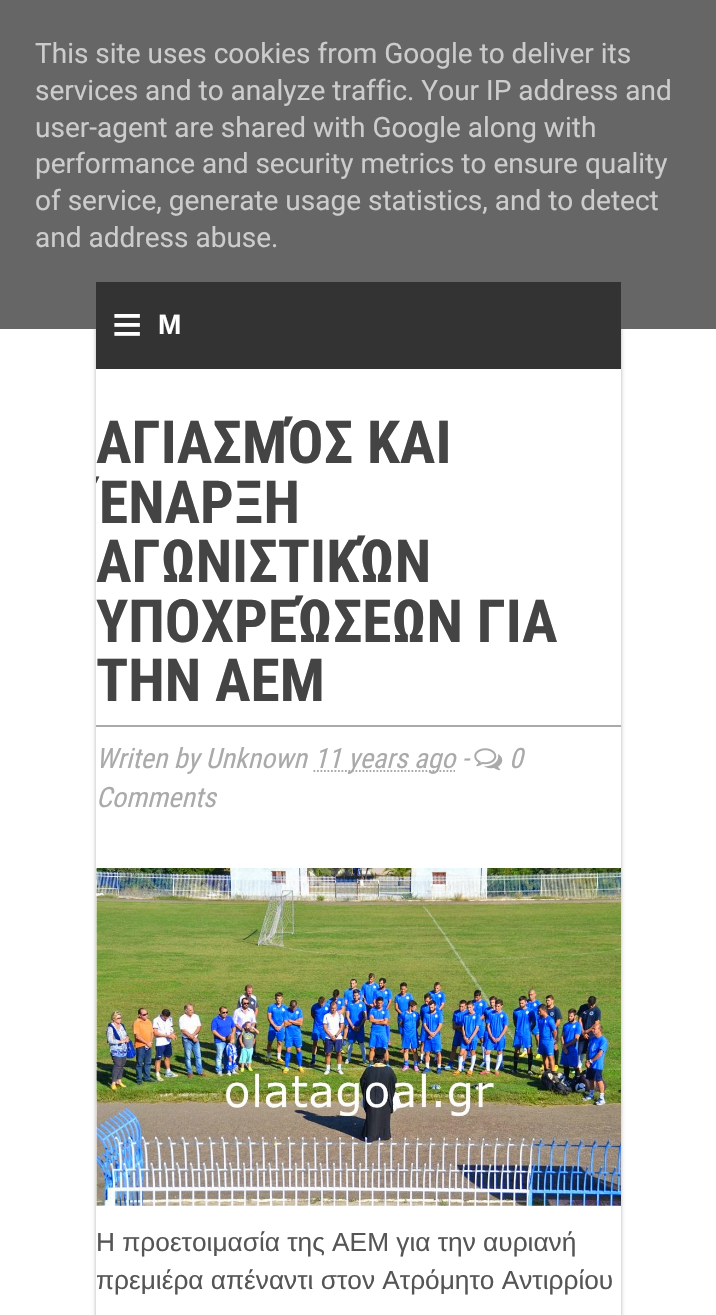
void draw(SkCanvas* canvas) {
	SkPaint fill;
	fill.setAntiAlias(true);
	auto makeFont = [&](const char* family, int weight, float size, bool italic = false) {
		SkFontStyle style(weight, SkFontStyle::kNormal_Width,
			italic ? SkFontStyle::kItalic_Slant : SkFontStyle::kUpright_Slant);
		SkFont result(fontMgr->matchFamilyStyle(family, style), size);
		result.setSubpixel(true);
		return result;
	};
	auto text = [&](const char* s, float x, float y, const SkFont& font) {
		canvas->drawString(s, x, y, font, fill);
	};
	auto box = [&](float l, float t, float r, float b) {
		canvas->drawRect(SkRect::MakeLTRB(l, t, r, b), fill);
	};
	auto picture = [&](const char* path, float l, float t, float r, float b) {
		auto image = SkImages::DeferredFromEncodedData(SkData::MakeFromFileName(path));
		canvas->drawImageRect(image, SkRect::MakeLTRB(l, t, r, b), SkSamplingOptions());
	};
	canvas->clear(0xFFFFFFFF);
	fill.setColor(0x4D000000);
	fill.setMaskFilter(SkMaskFilter::MakeBlur(kNormal_SkBlurStyle, 2));
	canvas->drawRect(SkRect::MakeLTRB(96, 0, 621, 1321), fill);
	fill.setMaskFilter(nullptr);
	fill.setColor(0xFF666666);
	box(0, 0, 716, 329);
	fill.setColor(0xFFFFFFFF);
	box(96, 369, 621, 1315);
	fill.setColor(0xFF333333);
	box(96, 282, 621, 369);
	fill.setColor(0xFFAAAAAA);
	box(96, 725, 621, 727);
	fill.setStyle(SkPaint::kStroke_Style);
	fill.setStrokeWidth(1.8f);
	fill.setPathEffect(SkDashPathEffect::Make({{1.75f, 1.75f}}, 0));
	canvas->drawPath(SkPathBuilder().moveTo(313.5f, 771).lineTo(455, 771).detach(), fill);
	fill.setPathEffect(nullptr);
	picture("image0.png", 474, 748, 503, 771);
	picture("image1.png", 96, 868, 621, 1206);
	auto font1 = makeFont("Roboto", 400, 28);
	fill.setStyle(SkPaint::kFill_Style);
	fill.setColor(0xFFCCCCCC);
	text("This site uses cookies from Google to deliver its", 35, 63, font1);
	text("services and to analyze traffic. Your IP address and", 35, 100, font1);
	text("user-agent are shared with Google along with", 35, 137, font1);
	text("performance and security metrics to ensure quality", 35, 173, font1);
	text("of service, generate usage statistics, and to detect", 35, 210, font1);
	text("and address abuse.", 35, 247, font1);
	auto font2 = makeFont("Liberation Sans", 700, 52);
	fill.setColor(0xFFFFFFFF);
	text("≡", 112, 342, font2);
	auto font3 = makeFont("Liberation Sans", 700, 28);
	text("M", 158, 334, font3);
	auto font4 = makeFont("Roboto Condensed", 700, 59.5f);
	fill.setColor(0xFF444444);
	text("ΑΓΙΑΣΜΌΣ ΚΑΙ", 96, 463, font4);
	canvas->save();
	canvas->clipRect(SkRect::MakeLTRB(96, 413, 621, 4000));
	text("ΈΝΑΡΞΗ", 96, 523, font4);
	canvas->restore();
	text("ΑΓΩΝΙΣΤΙΚΏΝ", 96, 582, font4);
	text("ΥΠΟΧΡΕΏΣΕΩΝ ΓΙΑ", 96, 642, font4);
	text("ΤΗΝ ΑΕΜ", 96, 701, font4);
	auto font5 = makeFont("Roboto Condensed", 400, 28, true);
	fill.setColor(0xFFAAAAAA);
	text("Writen by Unknown", 96, 768, font5);
	text("11 years ago -", 314, 768, font5);
	text("0", 509, 768, font5);
	text("Comments", 96, 807, font5);
	auto font6 = makeFont("Liberation Sans", 400, 26.25f);
	fill.setColor(0xFF555555);
	text("Η προετοιμασία της ΑΕΜ για την αυριανή", 96, 1251, font6);
	text("πρεμιέρα απέναντι στον Ατρόμητο Αντιρρίου", 96, 1289, font6);
}
